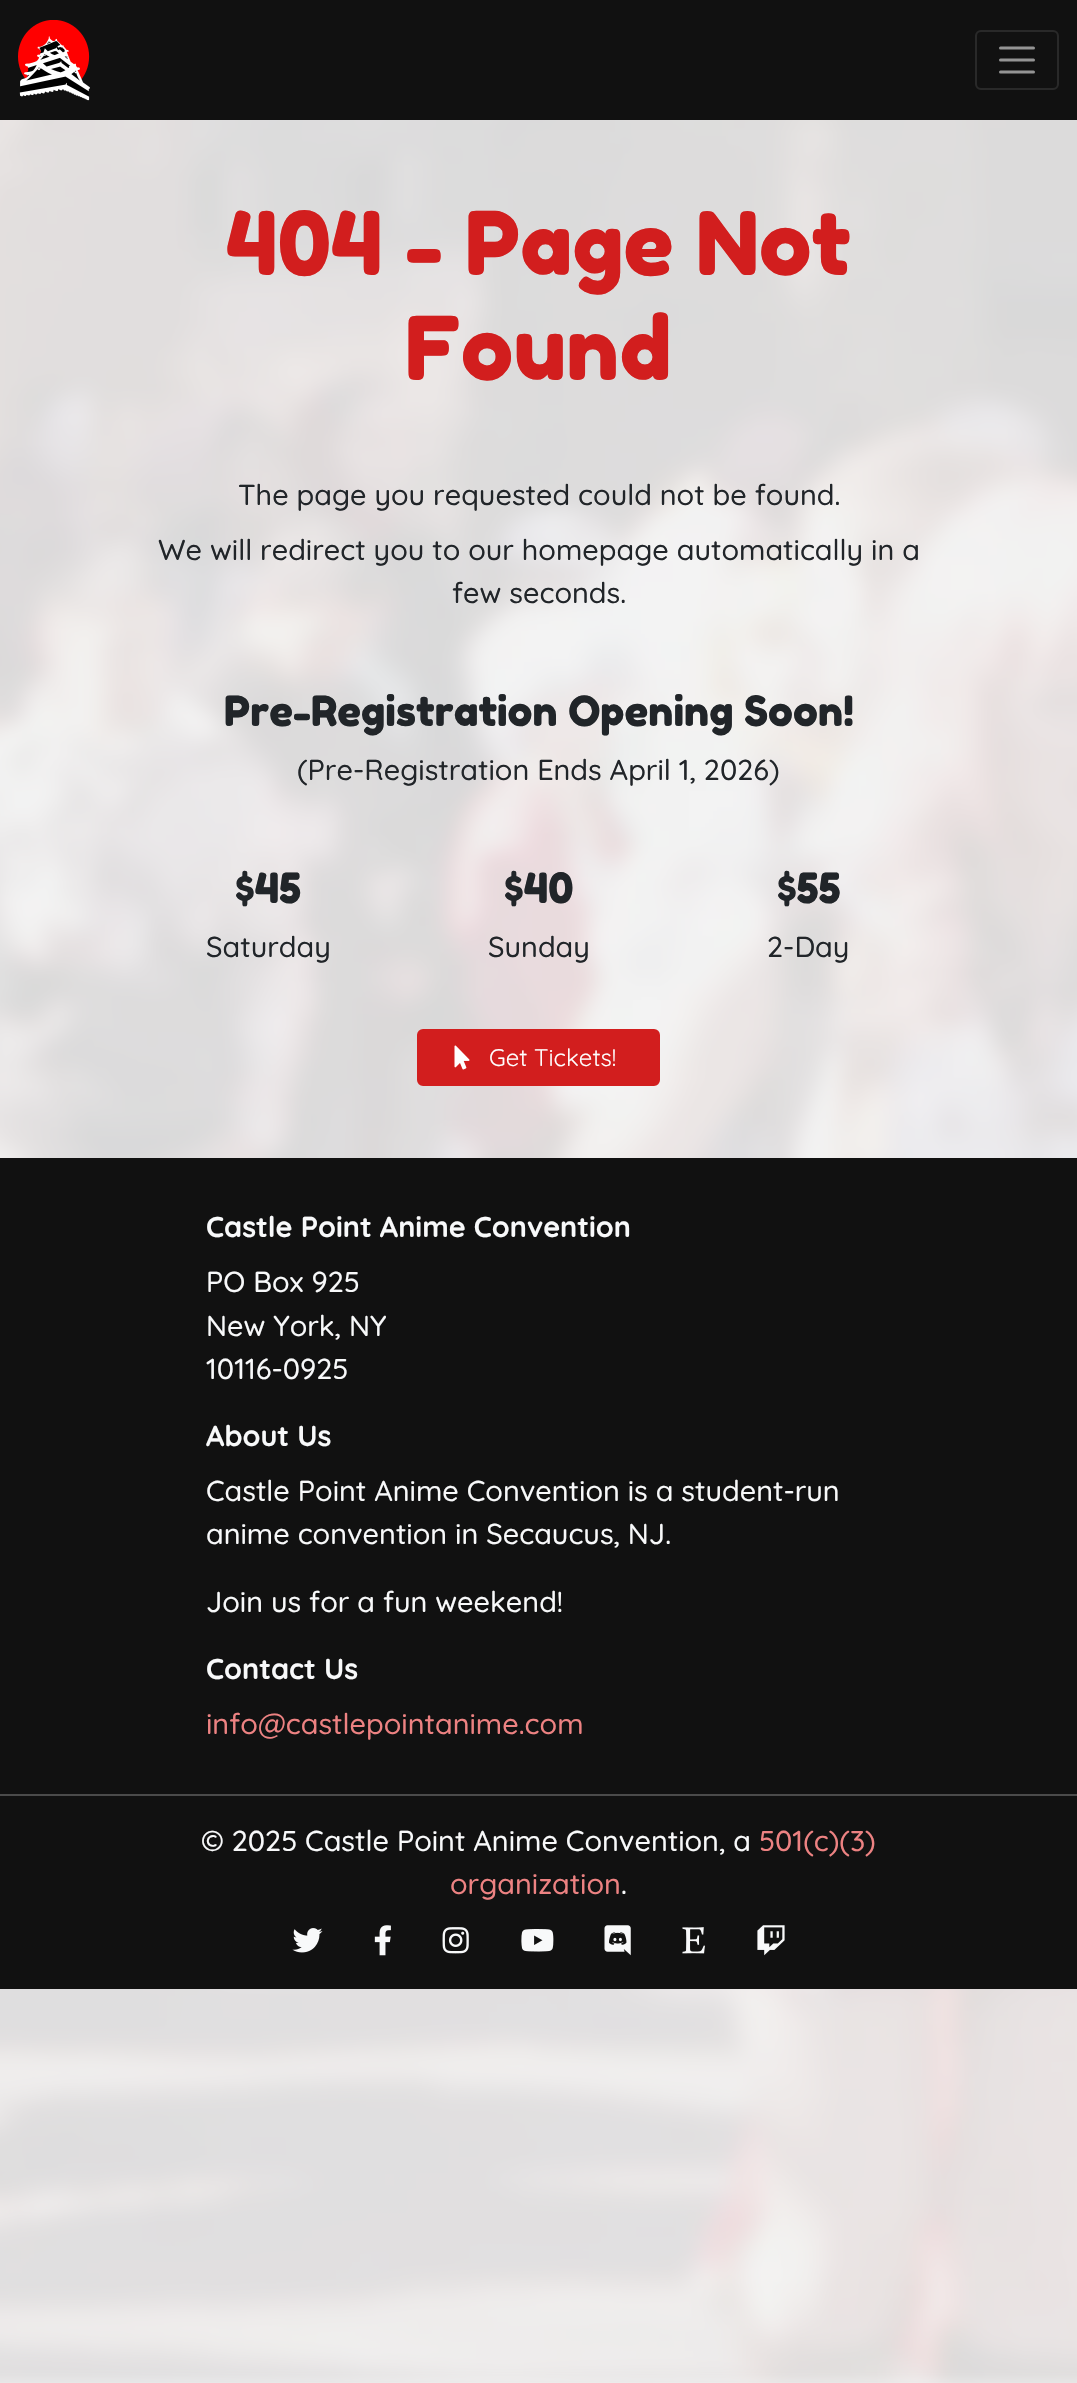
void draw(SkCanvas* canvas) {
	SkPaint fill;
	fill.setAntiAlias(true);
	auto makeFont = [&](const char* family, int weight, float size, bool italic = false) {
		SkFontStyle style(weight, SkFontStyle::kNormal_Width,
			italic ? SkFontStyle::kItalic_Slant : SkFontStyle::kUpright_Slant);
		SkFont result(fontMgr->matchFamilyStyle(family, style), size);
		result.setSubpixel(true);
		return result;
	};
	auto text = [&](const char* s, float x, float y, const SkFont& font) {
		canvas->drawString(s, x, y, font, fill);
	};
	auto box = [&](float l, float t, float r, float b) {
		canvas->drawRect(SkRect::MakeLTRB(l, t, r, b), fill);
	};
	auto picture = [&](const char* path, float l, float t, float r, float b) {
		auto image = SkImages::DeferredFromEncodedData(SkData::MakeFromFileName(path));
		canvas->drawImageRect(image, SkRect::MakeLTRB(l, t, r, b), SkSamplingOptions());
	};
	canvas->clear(0xFFF2F2F2);
	fill.setColor(0xFF111111);
	box(0, 0, 1077, 120);
	picture("image0.png", 18, 20, 90, 101);
	fill.setStyle(SkPaint::kStroke_Style);
	fill.setStrokeWidth(2);
	fill.setColor(0xFF292929);
	canvas->drawRoundRect(SkRect::MakeLTRB(976, 31, 1058, 89), 5, 5, fill);
	fill.setStrokeWidth(3);
	fill.setStrokeCap(SkPaint::kRound_Cap);
	fill.setColor(0xFF949494);
	canvas->drawPath(SkPathBuilder().moveTo(1000.5f, 48).lineTo(1033.5f, 48).moveTo(1000.5f, 60).lineTo(1033.5f, 60).moveTo(1000.5f, 72).lineTo(1033.5f, 72).detach(), fill);
	picture("image1.png", 0, 120, 1077, 2383);
	fill.setStyle(SkPaint::kFill_Style);
	fill.setColor(0xFFD21E1E);
	canvas->drawRoundRect(SkRect::MakeLTRB(418, 1030, 659, 1085), 5, 5, fill);
	fill.setStyle(SkPaint::kStroke_Style);
	fill.setStrokeWidth(2);
	fill.setStrokeCap(SkPaint::kButt_Cap);
	canvas->drawRoundRect(SkRect::MakeLTRB(418, 1030, 659, 1085), 5, 5, fill);
	picture("image2.png", 454, 1045, 470, 1070);
	fill.setStyle(SkPaint::kFill_Style);
	fill.setColor(0xFF111111);
	box(0, 1158, 1077, 1989);
	fill.setColor(0xFF4B4B4B);
	box(0, 1794, 1077, 1796);
	picture("image3.png", 292, 1928, 323, 1953);
	picture("image4.png", 374, 1925, 391, 1956);
	picture("image5.png", 442, 1927, 469, 1954);
	picture("image6.png", 521, 1929, 554, 1952);
	picture("image7.png", 604, 1925, 631, 1956);
	picture("image8.png", 682, 1927, 705, 1954);
	picture("image9.png", 757, 1925, 785, 1956);
	auto font1 = makeFont("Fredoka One", 400, 87.5f);
	fill.setColor(0xFFD21E1E);
	text("404 - Page Not", 226, 275, font1);
	text("Found", 405, 380, font1);
	auto font2 = makeFont("Quicksand", 500, 28.8f);
	fill.setColor(0xFF212529);
	text("The page you requested could not be found.", 238, 505, font2);
	text("We will redirect you to our homepage automatically in a", 158, 560, font2);
	text("few seconds.", 452, 603, font2);
	auto font3 = makeFont("Fredoka One", 400, 41.5f);
	text("Pre-Registration Opening Soon!", 224, 726, font3);
	text("(Pre-Registration Ends April 1, 2026)", 297, 780, font2);
	text("$45", 235, 903, font3);
	text("Saturday", 206, 957, font2);
	text("$40", 504, 903, font3);
	text("Sunday", 488, 957, font2);
	text("$55", 777, 903, font3);
	text("2-Day", 767, 957, font2);
	auto font4 = makeFont("Quicksand", 400, 24);
	fill.setColor(0xFFFFFFFF);
	text("Get Tickets!", 489, 1066, font4);
	auto font5 = makeFont("Quicksand", 700, 28.8f);
	fill.setColor(0xFFF8F9FA);
	text("Castle Point Anime Convention", 206, 1237, font5);
	text("PO Box 925", 206, 1292, font2);
	text("New York, NY", 206, 1336, font2);
	text("10116-0925", 206, 1379, font2);
	text("About Us", 206, 1446, font5);
	text("Castle Point Anime Convention is a student-run", 206, 1501, font2);
	text("anime convention in Secaucus, NJ.", 206, 1544, font2);
	text("Join us for a fun weekend!", 206, 1612, font2);
	text("Contact Us", 206, 1679, font5);
	fill.setColor(0xFFED8282);
	text("info@castlepointanime.com", 206, 1734, font2);
	fill.setColor(0xFFF8F9FA);
	text("© 2025 Castle Point Anime Convention, a", 201, 1851, font2);
	fill.setColor(0xFFED8282);
	text("501(c)(3)", 759, 1851, font2);
	text("organization", 450, 1894, font2);
	fill.setColor(0xFFF8F9FA);
	text(".", 621, 1894, font2);
}
